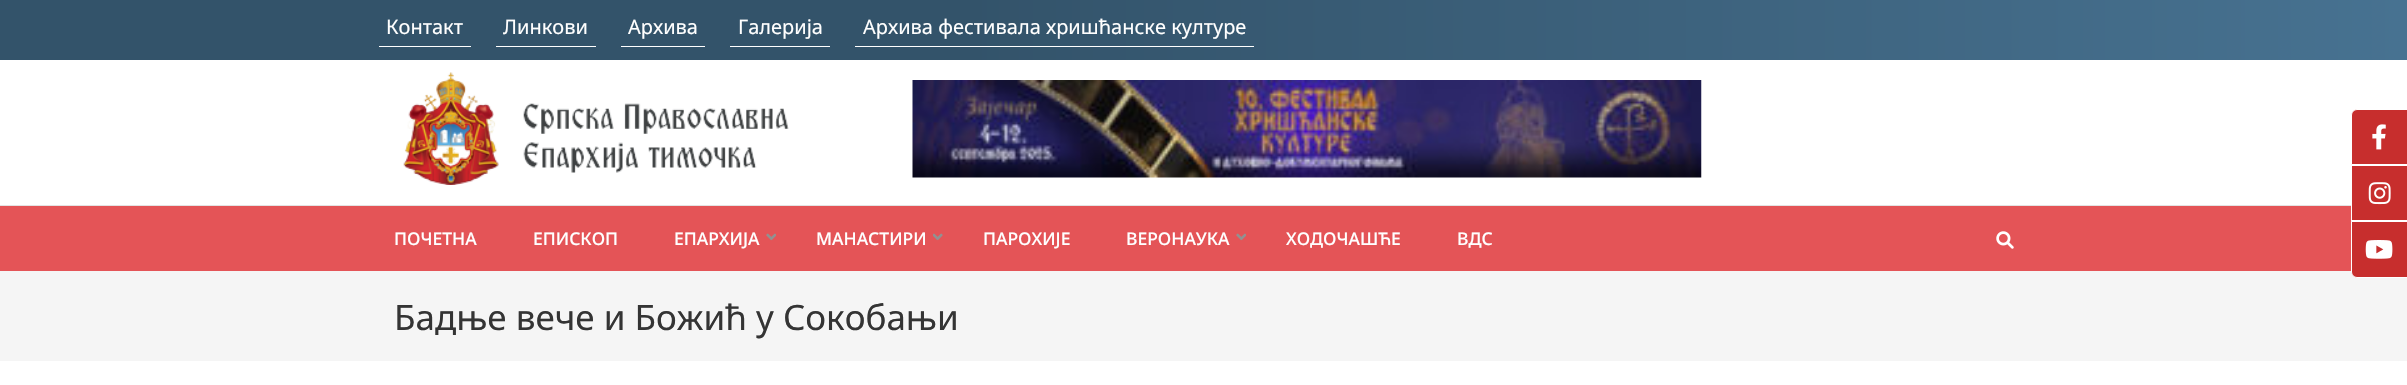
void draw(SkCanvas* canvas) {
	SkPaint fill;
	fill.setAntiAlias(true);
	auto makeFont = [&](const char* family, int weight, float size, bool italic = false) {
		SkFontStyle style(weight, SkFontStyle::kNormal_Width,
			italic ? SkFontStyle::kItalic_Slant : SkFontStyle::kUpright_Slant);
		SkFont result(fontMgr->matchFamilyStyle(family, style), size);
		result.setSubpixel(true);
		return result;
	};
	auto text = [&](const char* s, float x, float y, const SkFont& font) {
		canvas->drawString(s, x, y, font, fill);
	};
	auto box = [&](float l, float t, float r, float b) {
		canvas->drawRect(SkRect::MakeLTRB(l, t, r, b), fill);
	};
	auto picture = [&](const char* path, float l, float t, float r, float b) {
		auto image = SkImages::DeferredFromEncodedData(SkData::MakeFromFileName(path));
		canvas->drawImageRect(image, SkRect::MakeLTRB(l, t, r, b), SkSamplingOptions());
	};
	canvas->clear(0xFFFFFFFF);
	{
		const SkColor colors[] = {0xFF33536A, 0xFF477291};
		const float stops[] = {0.4f, 1};
		const SkPoint ends[] = {{0, 30}, {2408, 30}};
		fill.setShader(SkGradientShader::MakeLinear(ends, colors, stops, 2, SkTileMode::kClamp));
		fill.setAlpha(255);
	}
	box(0, 0, 2407, 60);
	fill.setShader(nullptr);
	fill.setColor(0xFFFFFFFF);
	box(379, 46, 471, 47);
	box(496, 46, 596, 47);
	box(621, 46, 705, 47);
	box(730, 46, 830, 47);
	box(855, 46, 1254, 47);
	fill.setColor(0xFFE3E3E3);
	box(0, 205, 2351, 206);
	picture("image0.png", 403, 72, 789, 185);
	picture("image1.png", 912, 80, 1702, 178);
	fill.setColor(0xFFE45457);
	box(0, 206, 2351, 271);
	picture("image2.png", 766, 233, 776, 241);
	picture("image3.png", 933, 233, 943, 241);
	picture("image2.png", 1236, 233, 1246, 241);
	picture("image4.png", 1996, 231, 2014, 249);
	fill.setColor(0xFFF5F5F5);
	box(0, 271, 2407, 361);
	fill.setColor(0xFFC72E2D);
	canvas->drawPath(SkPathBuilder().moveTo(2357, 109.5f).lineTo(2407.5f, 109.5f).lineTo(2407.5f, 164.5f).lineTo(2351.5f, 164.5f).lineTo(2351.5f, 115).cubicTo(2351.5f, 112, 2354, 109.5f, 2357, 109.5f).close().detach(), fill);
	fill.setStyle(SkPaint::kStroke_Style);
	fill.setStrokeWidth(1);
	fill.setColor(0xFFFFFFFF);
	canvas->drawPath(SkPathBuilder().moveTo(2357, 109.5f).lineTo(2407.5f, 109.5f).lineTo(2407.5f, 164.5f).lineTo(2351.5f, 164.5f).lineTo(2351.5f, 115).cubicTo(2351.5f, 112, 2354, 109.5f, 2357, 109.5f).close().detach(), fill);
	picture("image5.png", 2372, 124, 2386, 150);
	fill.setStyle(SkPaint::kFill_Style);
	fill.setColor(0xFFC72E2D);
	box(2352, 166, 2407, 220);
	picture("image6.png", 2368, 182, 2391, 205);
	canvas->drawPath(SkPathBuilder().moveTo(2351.5f, 221.5f).lineTo(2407.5f, 221.5f).lineTo(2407.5f, 277.5f).lineTo(2357, 277.5f).cubicTo(2354, 277.5f, 2351.5f, 275, 2351.5f, 272).close().detach(), fill);
	fill.setStyle(SkPaint::kStroke_Style);
	fill.setColor(0xFFFFFFFF);
	canvas->drawPath(SkPathBuilder().moveTo(2351.5f, 221.5f).lineTo(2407.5f, 221.5f).lineTo(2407.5f, 277.5f).lineTo(2357, 277.5f).cubicTo(2354, 277.5f, 2351.5f, 275, 2351.5f, 272).close().detach(), fill);
	picture("image7.png", 2365, 240, 2393, 259);
	auto font1 = makeFont("Noto Sans", 400, 20);
	fill.setStyle(SkPaint::kFill_Style);
	text("Контакт", 386, 34, font1);
	text("Линкови", 503, 34, font1);
	text("Архива", 628, 34, font1);
	text("Галерија", 738, 34, font1);
	text("Архива фестивала хришћанске културе", 863, 34, font1);
	auto font2 = makeFont("Noto Sans", 500, 17.5f);
	text("ПОЧЕТНА", 394, 245, font2);
	text("ЕПИСКОП", 533, 245, font2);
	text("ЕПАРХИЈА", 674, 245, font2);
	text("МАНАСТИРИ", 816, 245, font2);
	text("ПАРОХИЈЕ", 983, 245, font2);
	text("ВЕРОНАУКА", 1126, 245, font2);
	text("ХОДОЧАШЋЕ", 1286, 245, font2);
	text("ВДС", 1457, 245, font2);
	auto font3 = makeFont("Noto Sans", 400, 35);
	fill.setColor(0xFF343434);
	text("Бадње вече и Божић у Сокобањи", 394, 330, font3);
}
